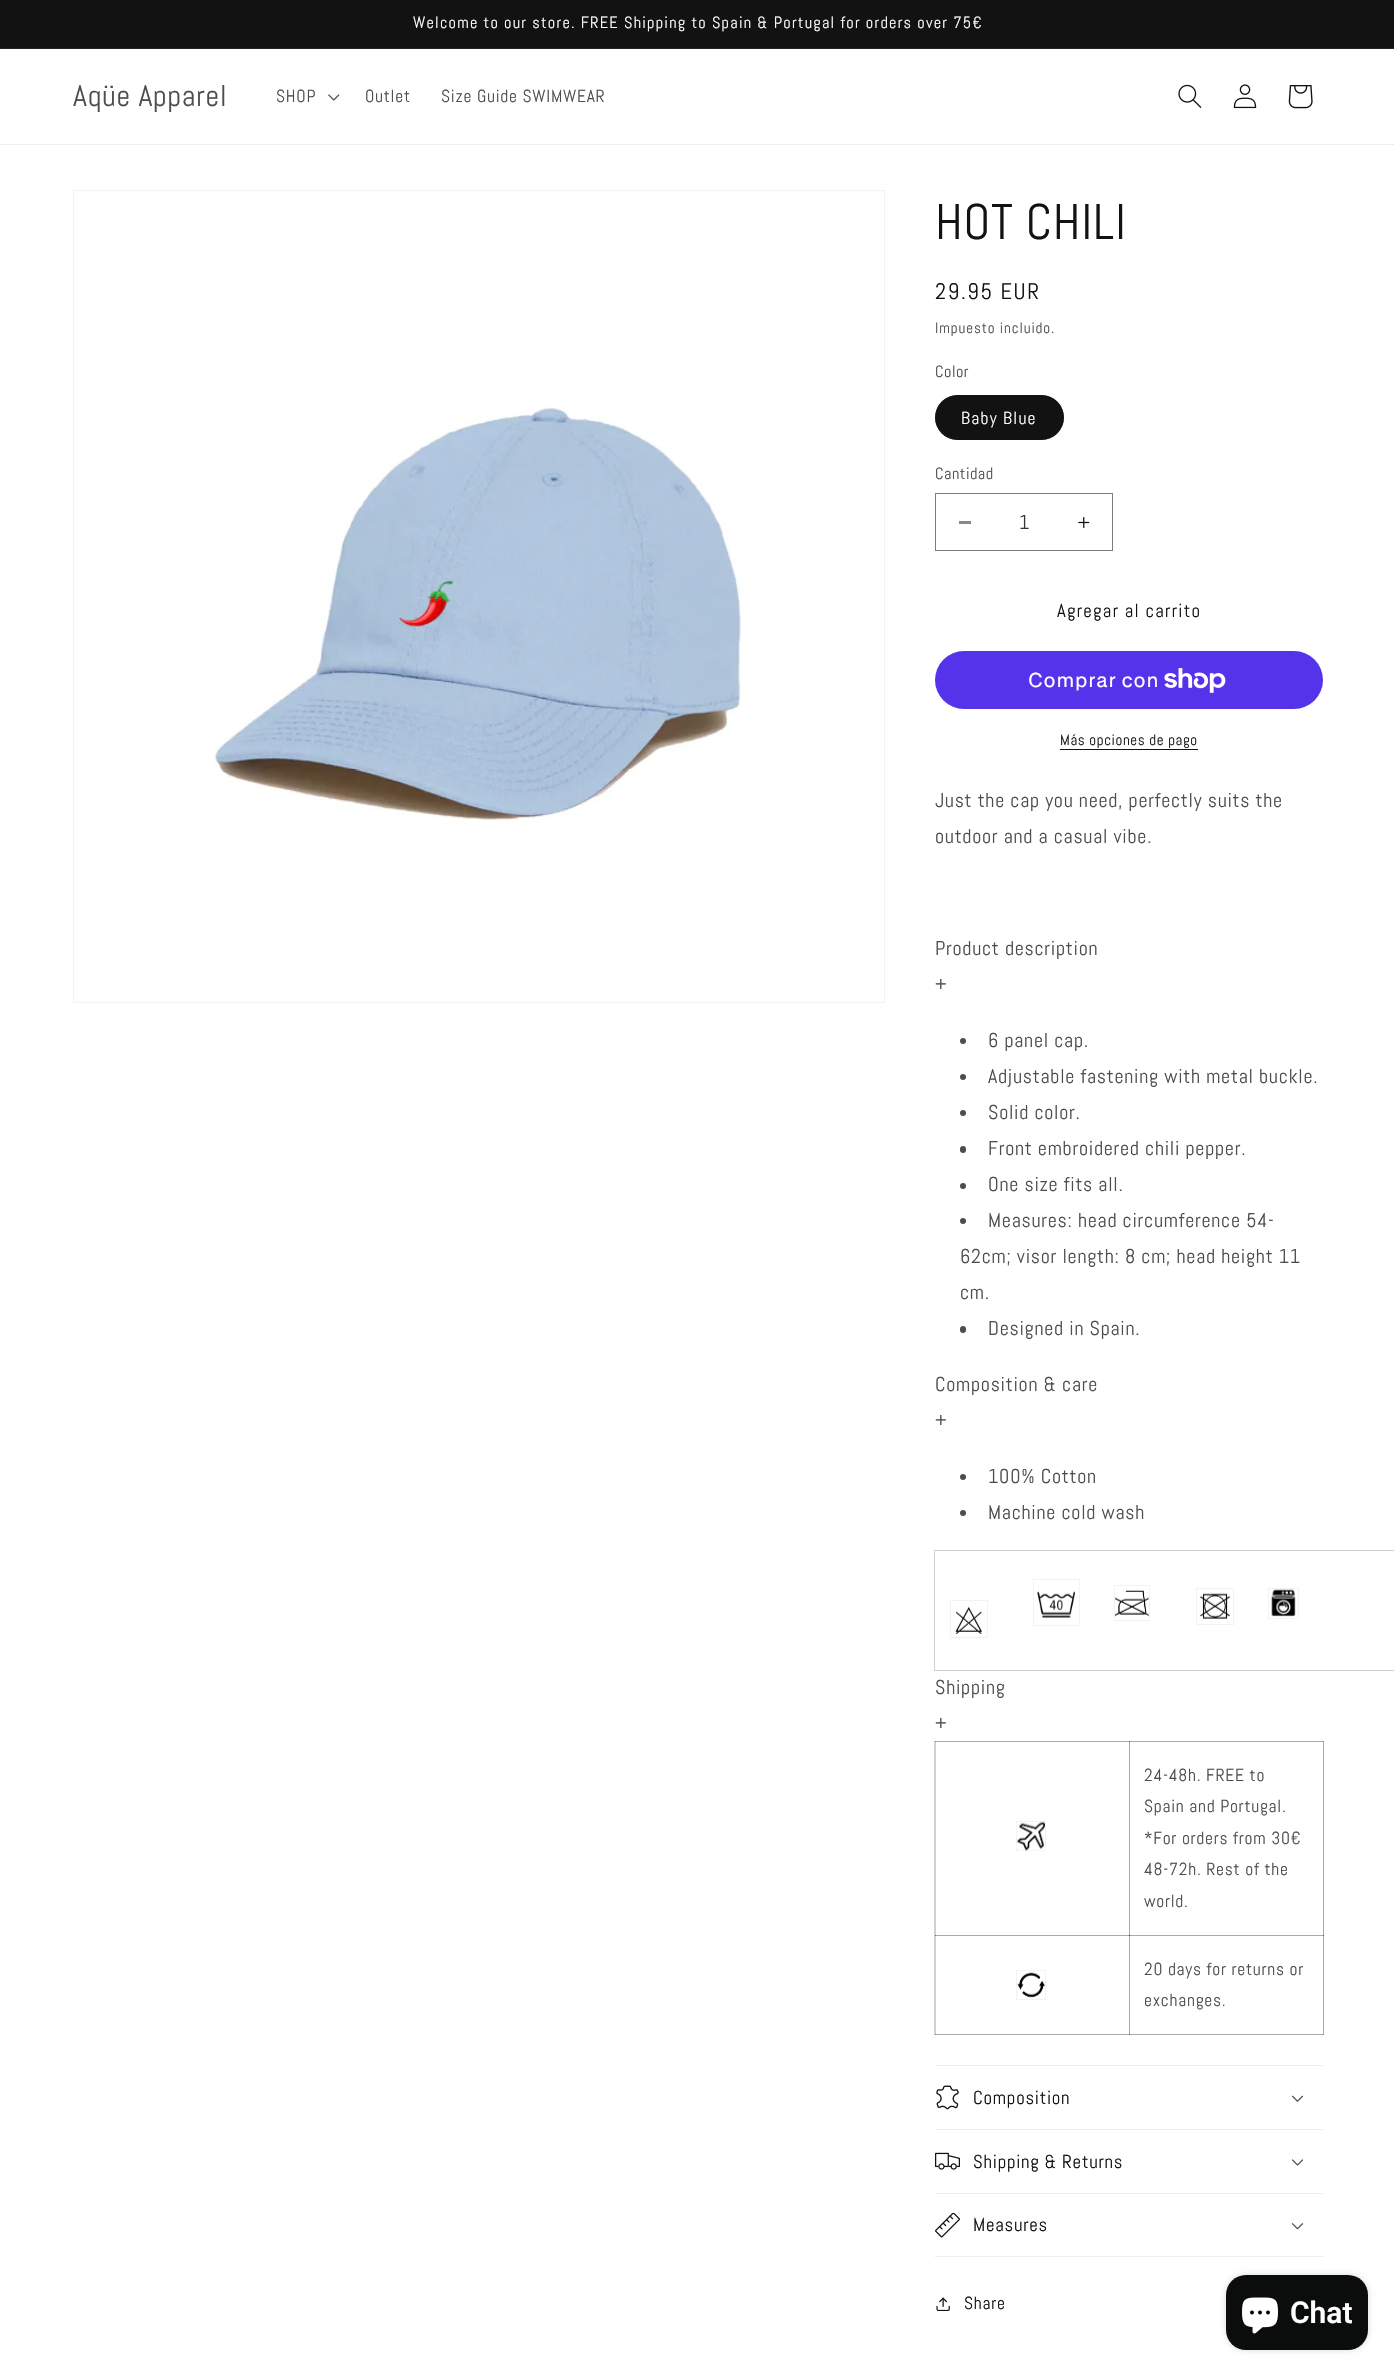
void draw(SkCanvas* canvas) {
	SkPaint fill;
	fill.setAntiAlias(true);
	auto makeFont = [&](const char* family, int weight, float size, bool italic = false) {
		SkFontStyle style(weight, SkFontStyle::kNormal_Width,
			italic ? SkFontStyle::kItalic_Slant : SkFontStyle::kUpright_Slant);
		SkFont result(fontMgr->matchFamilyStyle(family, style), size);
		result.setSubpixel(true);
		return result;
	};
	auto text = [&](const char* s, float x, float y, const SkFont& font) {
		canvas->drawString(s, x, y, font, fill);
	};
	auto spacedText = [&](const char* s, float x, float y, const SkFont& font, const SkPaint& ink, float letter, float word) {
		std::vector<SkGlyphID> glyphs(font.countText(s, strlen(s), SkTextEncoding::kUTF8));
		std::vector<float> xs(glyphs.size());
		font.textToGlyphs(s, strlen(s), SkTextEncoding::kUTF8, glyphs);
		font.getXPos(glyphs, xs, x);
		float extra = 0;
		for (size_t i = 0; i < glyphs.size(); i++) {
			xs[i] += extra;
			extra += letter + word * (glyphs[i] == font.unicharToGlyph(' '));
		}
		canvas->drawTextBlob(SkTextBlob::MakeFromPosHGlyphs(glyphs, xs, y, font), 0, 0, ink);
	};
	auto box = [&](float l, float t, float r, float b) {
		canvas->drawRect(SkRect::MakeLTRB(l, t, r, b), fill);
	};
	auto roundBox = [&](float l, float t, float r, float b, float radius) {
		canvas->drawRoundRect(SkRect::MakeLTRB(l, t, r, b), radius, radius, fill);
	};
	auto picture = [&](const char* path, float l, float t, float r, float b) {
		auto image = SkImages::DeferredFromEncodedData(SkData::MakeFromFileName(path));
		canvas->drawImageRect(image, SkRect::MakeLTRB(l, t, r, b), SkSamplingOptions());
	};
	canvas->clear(0xFFFFFFFF);
	fill.setColor(0xFF121212);
	box(0, 0, 1394, 48);
	fill.setColor(0xFF252525);
	box(0, 48, 1394, 49);
	fill.setColor(0xFFECECEC);
	box(0, 144, 1394, 145);
	picture("image0.png", 328, 94, 340, 101);
	picture("image1.png", 1178, 84, 1202, 108);
	picture("image2.png", 1233, 84, 1257, 109);
	picture("image3.png", 1288, 85, 1313, 109);
	fill.setStyle(SkPaint::kStroke_Style);
	fill.setStrokeWidth(1);
	fill.setColor(0xFFF3F3F3);
	canvas->drawRect(SkRect::MakeLTRB(73.5f, 190.5f, 884.5f, 1002.5f), fill);
	picture("image4.png", 212, 405, 741, 820);
	fill.setStyle(SkPaint::kFill_Style);
	fill.setColor(0xFF121212);
	roundBox(935, 395, 1064, 440, 22.5f);
	fill.setStyle(SkPaint::kStroke_Style);
	fill.setColor(0x8C121212);
	canvas->drawRoundRect(SkRect::MakeLTRB(935.5f, 395.5f, 1063.5f, 439.5f), 22, 22, fill);
	fill.setStyle(SkPaint::kFill_Style);
	fill.setColor(0xFF898989);
	box(959, 521, 971, 524);
	picture("image5.png", 1078, 516, 1090, 529);
	fill.setStyle(SkPaint::kStroke_Style);
	fill.setColor(0xFF7D7D7D);
	canvas->drawRect(SkRect::MakeLTRB(935.5f, 493.5f, 1112.5f, 550.5f), fill);
	fill.setStyle(SkPaint::kFill_Style);
	fill.setColor(0xFF5433EB);
	roundBox(935, 651, 1323, 709, 29);
	picture("image6.png", 1164, 668, 1226, 693);
	fill.setColor(0xFF121212);
	box(1060, 749, 1198, 750);
	fill.setColor(0xFF4D4D4D);
	canvas->drawCircle(963, 1041, 3, fill);
	canvas->drawCircle(963, 1077, 3, fill);
	canvas->drawCircle(963, 1113, 3, fill);
	roundBox(960, 1146, 966, 1153, 3);
	canvas->drawCircle(963, 1186, 3, fill);
	canvas->drawCircle(963, 1221, 3, fill);
	roundBox(960, 1326, 966, 1333, 3);
	canvas->drawCircle(963, 1477, 3, fill);
	canvas->drawCircle(963, 1513, 3, fill);
	fill.setStyle(SkPaint::kStroke_Style);
	fill.setColor(0xFFD0D0D0);
	canvas->drawRect(SkRect::MakeLTRB(934.5f, 1550.5f, 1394.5f, 1670.5f), fill);
	fill.setColor(0xFFF3F3F3);
	canvas->drawRect(SkRect::MakeLTRB(950.5f, 1600.5f, 987.5f, 1637.5f), fill);
	picture("image7.png", 955, 1606, 982, 1634);
	canvas->drawRect(SkRect::MakeLTRB(1033.5f, 1579.5f, 1079.5f, 1625.5f), fill);
	picture("image8.png", 1037, 1591, 1075, 1618);
	canvas->drawRect(SkRect::MakeLTRB(1114.5f, 1585.5f, 1149.5f, 1620.5f), fill);
	picture("image9.png", 1115, 1590, 1149, 1616);
	canvas->drawRect(SkRect::MakeLTRB(1196.5f, 1588.5f, 1233.5f, 1624.5f), fill);
	picture("image10.png", 1200, 1593, 1230, 1619);
	canvas->drawRect(SkRect::MakeLTRB(1268.5f, 1588.5f, 1298.5f, 1618.5f), fill);
	picture("image11.png", 1271, 1589, 1296, 1617);
	fill.setColor(0xFFD0D0D0);
	canvas->drawRect(SkRect::MakeLTRB(934.5f, 1741.5f, 1323.5f, 2034.5f), fill);
	fill.setStyle(SkPaint::kFill_Style);
	fill.setColor(0xFFAAAAAA);
	box(1129, 1741, 1324, 1742);
	fill.setColor(0x33121212);
	box(1129, 1935, 1324, 1936);
	box(1323, 1935, 1324, 2035);
	box(1323, 1741, 1324, 1936);
	box(1129, 2034, 1324, 2035);
	box(1129, 1935, 1130, 2035);
	box(935, 1935, 1130, 1936);
	box(1129, 1935, 1130, 2035);
	box(1129, 1935, 1324, 1936);
	box(1129, 1741, 1130, 1936);
	box(935, 1741, 1130, 1742);
	box(1129, 1741, 1130, 1936);
	box(935, 2034, 1130, 2035);
	box(935, 1935, 936, 2035);
	box(935, 1935, 1130, 1936);
	box(935, 1741, 936, 1936);
	fill.setStyle(SkPaint::kStroke_Style);
	fill.setColor(0xFFF3F3F3);
	canvas->drawRect(SkRect::MakeLTRB(1016.5f, 1821.5f, 1045.5f, 1850.5f), fill);
	picture("image12.png", 1017, 1821, 1045, 1851);
	canvas->drawRect(SkRect::MakeLTRB(1016.5f, 1970.5f, 1045.5f, 1999.5f), fill);
	picture("image13.png", 1017, 1972, 1045, 1998);
	fill.setStyle(SkPaint::kFill_Style);
	fill.setColor(0xFFECECEC);
	box(935, 2065, 1323, 2066);
	box(935, 2129, 1323, 2130);
	picture("image14.png", 936, 2085, 959, 2110);
	picture("image15.png", 1291, 2095, 1304, 2102);
	box(935, 2193, 1323, 2194);
	picture("image16.png", 935, 2152, 960, 2170);
	picture("image17.png", 1292, 2159, 1303, 2166);
	box(935, 2256, 1323, 2257);
	picture("image18.png", 935, 2213, 960, 2238);
	picture("image19.png", 1291, 2223, 1304, 2230);
	picture("image20.png", 936, 2297, 950, 2311);
	fill.setColor(0x26000000);
	fill.setMaskFilter(SkMaskFilter::MakeBlur(kNormal_SkBlurStyle, 3));
	canvas->drawRoundRect(SkRect::MakeLTRB(1226, 2275, 1368, 2350), 20, 20, fill);
	fill.setMaskFilter(nullptr);
	fill.setColor(0xFF0B0C0C);
	roundBox(1226, 2275, 1368, 2350, 20);
	picture("image21.png", 1242, 2297, 1278, 2334);
	auto font1 = makeFont("Abel", 400, 16.25f);
	fill.setColor(0xFFFFFFFF);
	spacedText("Welcome to our store. FREE Shipping to Spain & Portugal for orders over 75€", 413, 28, font1, fill, 1.25f, 0);
	auto font2 = makeFont("Abel", 400, 30);
	fill.setColor(0xFF4D4D4D);
	spacedText("Aqüe Apparel", 73, 106, font2, fill, 0.75f, 0);
	auto font3 = makeFont("Abel", 400, 17.5f);
	spacedText("SHOP", 276, 102, font3, fill, 0.75f, 0);
	spacedText("Outlet", 365, 102, font3, fill, 0.75f, 0);
	spacedText("Size Guide SWIMWEAR", 441, 102, font3, fill, 0.75f, 0);
	auto font4 = makeFont("Abel", 400, 50);
	fill.setColor(0xFF121212);
	spacedText("HOT CHILI", 935, 239, font4, fill, 0.75f, 0);
	auto font5 = makeFont("Abel", 400, 22.5f);
	spacedText("29.95 EUR", 935, 299, font5, fill, 1.6f, 0);
	auto font6 = makeFont("Abel", 400, 15);
	fill.setColor(0xFF4D4D4D);
	spacedText("Impuesto incluido.", 935, 333, font6, fill, 0.9f, 0);
	spacedText("Color", 935, 377, font1, fill, 0.5f, 0);
	fill.setColor(0xFFFFFFFF);
	spacedText("Baby Blue", 961, 424, font3, fill, 1.25f, 0);
	fill.setColor(0xFF4D4D4D);
	spacedText("Cantidad", 935, 479, font1, fill, 0.5f, 0);
	auto font7 = makeFont("Abel", 400, 20);
	fill.setColor(0xFF363636);
	text("1", 1019, 529, font7);
	auto font8 = makeFont("Abel", 400, 18.75f);
	fill.setColor(0xFF121212);
	spacedText("Agregar al carrito", 1057, 617, font8, fill, 1.25f, 0);
	auto font9 = makeFont("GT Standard", 400, 20);
	fill.setColor(0xFFFFFFFF);
	spacedText("Comprar con", 1028, 687, font9, fill, 0.75f, 0);
	fill.setColor(0xFF121212);
	spacedText("Más opciones de pago", 1060, 745, font6, fill, 0.6f, 0);
	fill.setColor(0xFF4D4D4D);
	spacedText("Just the cap you need, perfectly suits the", 935, 807, font7, fill, 0.75f, 0);
	spacedText("outdoor and a casual vibe.", 935, 843, font7, fill, 0.75f, 0);
	spacedText("Product description", 935, 955, font7, fill, 0.75f, 0);
	spacedText("+", 935, 991, font7, fill, 0.75f, 0);
	spacedText("6 panel cap.", 988, 1047, font7, fill, 0.75f, 0);
	spacedText("Adjustable fastening with metal buckle.", 988, 1083, font7, fill, 0.75f, 0);
	spacedText("Solid color.", 988, 1119, font7, fill, 0.75f, 0);
	spacedText("Front embroidered chili pepper.", 988, 1155, font7, fill, 0.75f, 0);
	spacedText("One size fits all.", 988, 1191, font7, fill, 0.75f, 0);
	spacedText("Measures: head circumference 54-", 988, 1227, font7, fill, 0.75f, 0);
	spacedText("62cm; visor length: 8 cm; head height 11", 960, 1263, font7, fill, 0.75f, 0);
	spacedText("cm.", 960, 1299, font7, fill, 0.75f, 0);
	spacedText("Designed in Spain.", 988, 1335, font7, fill, 0.75f, 0);
	spacedText("Composition & care", 935, 1391, font7, fill, 0.75f, 0);
	spacedText("+", 935, 1427, font7, fill, 0.75f, 0);
	spacedText("100% Cotton", 988, 1483, font7, fill, 0.75f, 0);
	spacedText("Machine cold wash", 988, 1519, font7, fill, 0.75f, 0);
	spacedText("Shipping", 935, 1694, font7, fill, 0.75f, 0);
	spacedText("+", 935, 1730, font7, fill, 0.75f, 0);
	spacedText("24-48h. FREE to", 1144, 1781, font3, fill, 0.75f, 0);
	spacedText("Spain and Portugal.", 1144, 1812, font3, fill, 0.75f, 0);
	spacedText("*For orders from 30€", 1144, 1844, font3, fill, 0.75f, 0);
	spacedText("48-72h. Rest of the", 1144, 1875, font3, fill, 0.75f, 0);
	spacedText("world.", 1144, 1907, font3, fill, 0.75f, 0);
	spacedText("20 days for returns or", 1144, 1975, font3, fill, 0.75f, 0);
	spacedText("exchanges.", 1144, 2006, font3, fill, 0.75f, 0);
	fill.setColor(0xFF121212);
	spacedText("Composition", 973, 2104, font8, fill, 0.75f, 0);
	spacedText("Shipping & Returns", 973, 2168, font8, fill, 0.75f, 0);
	spacedText("Measures", 973, 2231, font8, fill, 0.75f, 0);
	spacedText("Share", 964, 2309, font3, fill, 0.75f, 0);
	auto font10 = makeFont("Roboto", 600, 30);
	fill.setColor(0xFFFFFFFF);
	text("Chat", 1290, 2323, font10);
}
